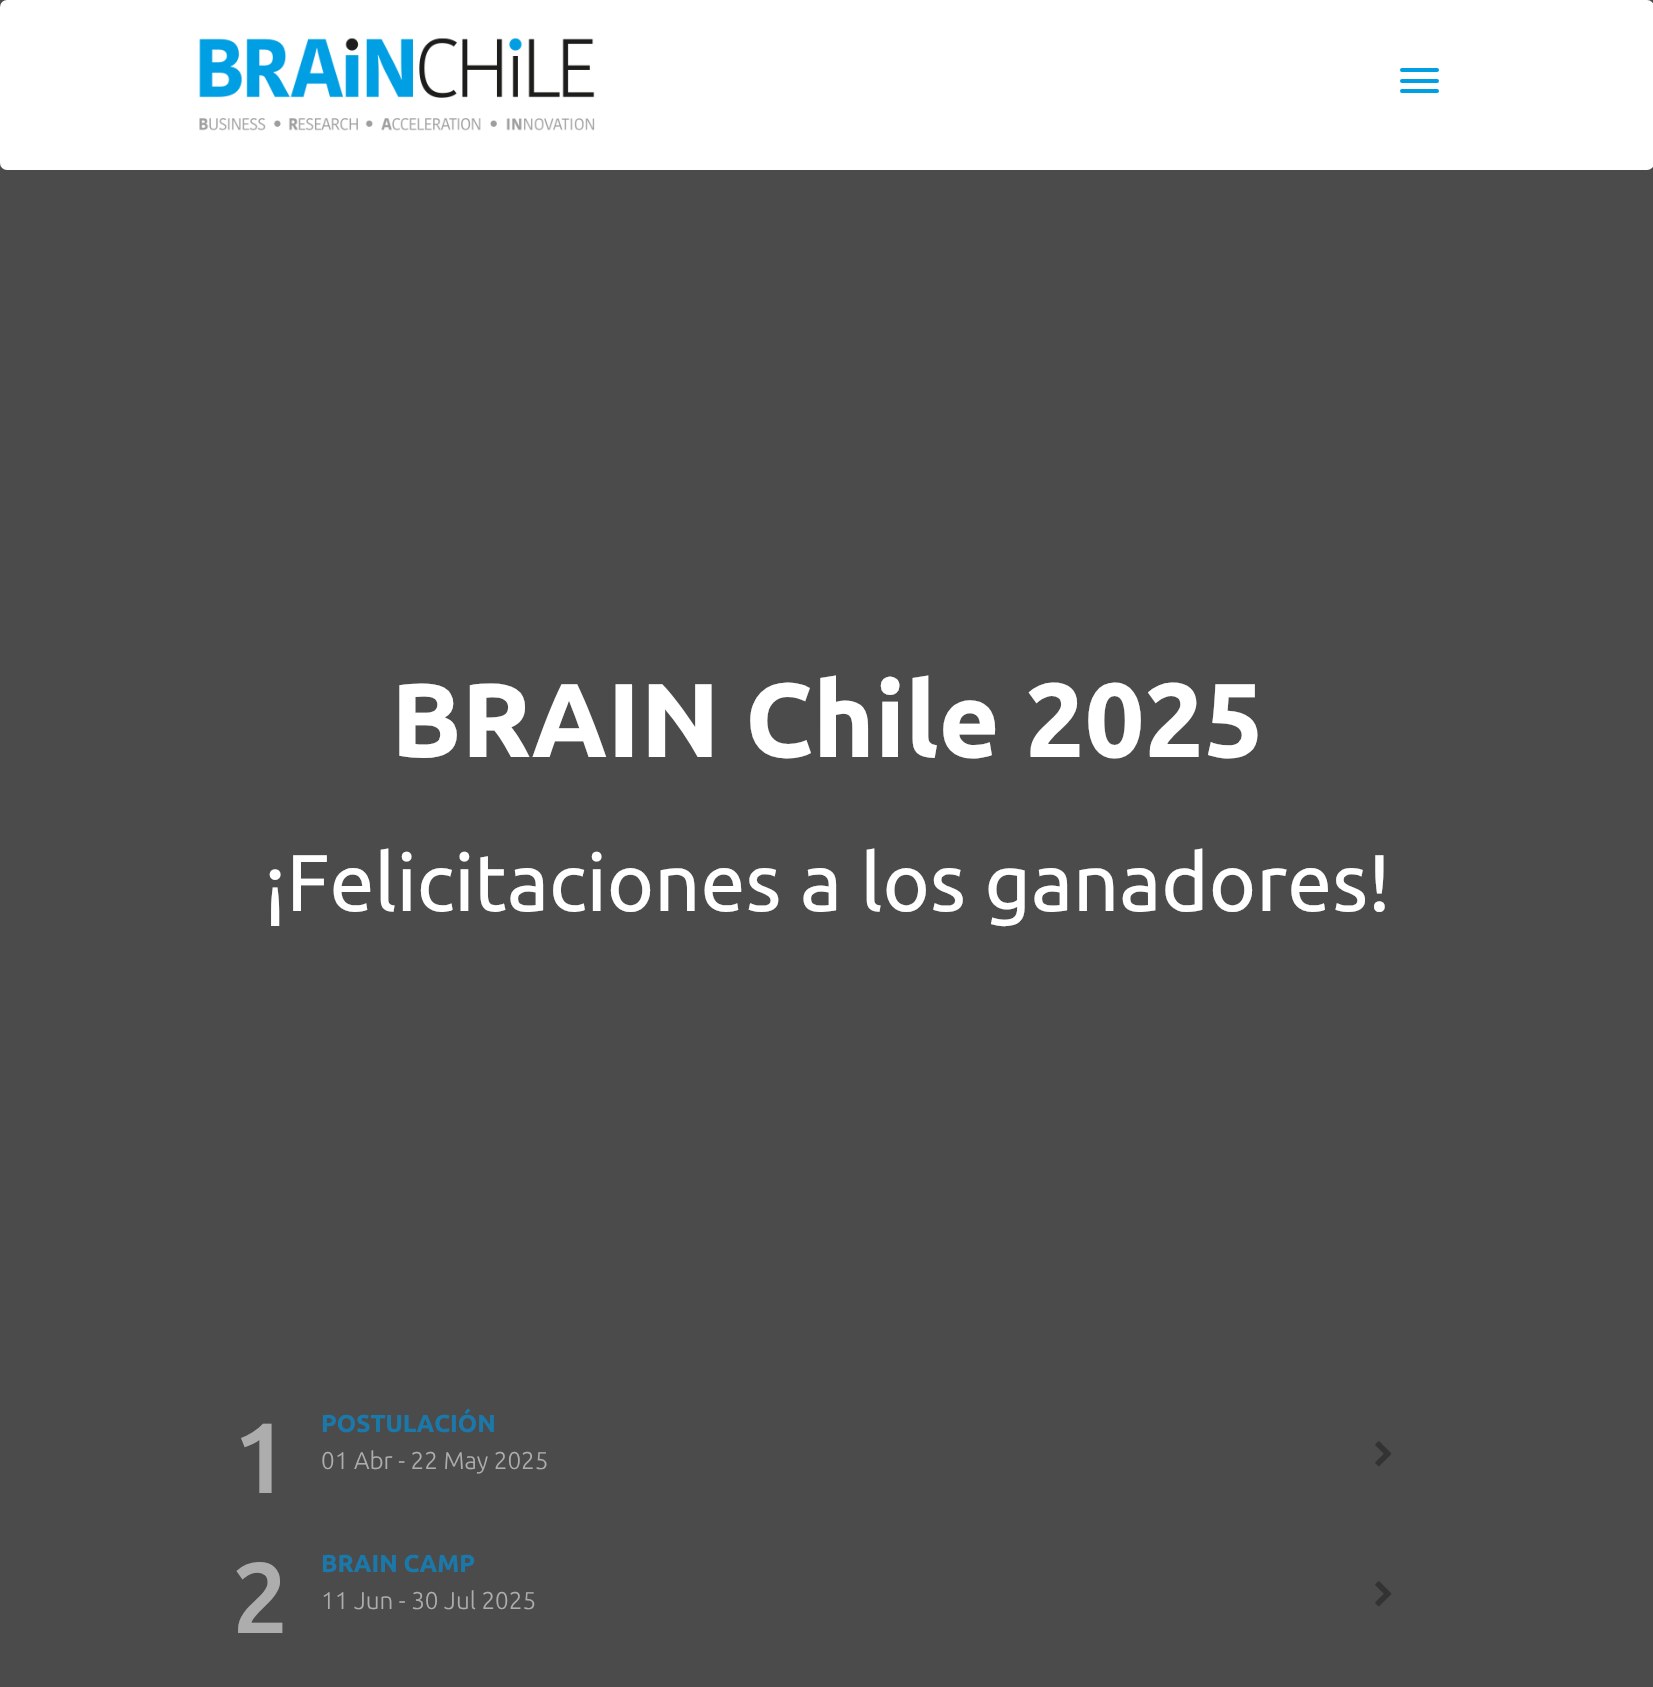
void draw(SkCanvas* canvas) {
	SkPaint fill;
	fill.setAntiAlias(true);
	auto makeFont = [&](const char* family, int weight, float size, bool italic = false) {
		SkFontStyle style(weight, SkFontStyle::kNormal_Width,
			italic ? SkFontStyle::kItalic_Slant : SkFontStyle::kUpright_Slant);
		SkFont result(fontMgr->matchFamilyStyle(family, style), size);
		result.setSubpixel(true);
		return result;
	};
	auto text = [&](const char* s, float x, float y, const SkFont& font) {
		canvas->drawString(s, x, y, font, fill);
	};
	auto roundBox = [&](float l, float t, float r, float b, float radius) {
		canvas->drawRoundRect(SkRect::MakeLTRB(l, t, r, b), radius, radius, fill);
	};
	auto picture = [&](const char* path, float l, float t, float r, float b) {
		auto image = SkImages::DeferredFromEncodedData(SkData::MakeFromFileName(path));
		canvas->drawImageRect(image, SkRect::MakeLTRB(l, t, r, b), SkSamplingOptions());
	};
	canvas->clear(0xFF4B4B4B);
	fill.setColor(0xFFFFFFFF);
	roundBox(0, 0, 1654, 170, 7);
	picture("image0.png", 199, 38, 595, 131);
	fill.setColor(0xFF009FE3);
	roundBox(1400, 68, 1439, 72, 2);
	roundBox(1400, 79, 1439, 83, 2);
	roundBox(1400, 89, 1439, 93, 2);
	picture("image1.png", 1375, 1441, 1392, 1467);
	picture("image1.png", 1375, 1581, 1392, 1607);
	auto font1 = makeFont("Ubuntu", 700, 105);
	fill.setColor(0xFFFFFFFF);
	text("BRAIN Chile 2025", 391, 757, font1);
	auto font2 = makeFont("Ubuntu", 400, 80.5f);
	text("¡Felicitaciones a los ganadores!", 264, 911, font2);
	auto font3 = makeFont("Ubuntu", 500, 100);
	fill.setColor(0xFFADADAD);
	text("1", 232, 1493, font3);
	auto font4 = makeFont("Ubuntu", 700, 24.5f);
	fill.setColor(0xFF1A79AA);
	text("POSTULACIÓN", 321, 1432, font4);
	auto font5 = makeFont("Ubuntu", 300, 24.25f);
	fill.setColor(0xFFADADAD);
	text("01 Abr - 22 May 2025", 321, 1469, font5);
	text("2", 232, 1633, font3);
	fill.setColor(0xFF1A79AA);
	text("BRAIN CAMP", 321, 1572, font4);
	fill.setColor(0xFFADADAD);
	text("11 Jun - 30 Jul 2025", 321, 1609, font5);
}
